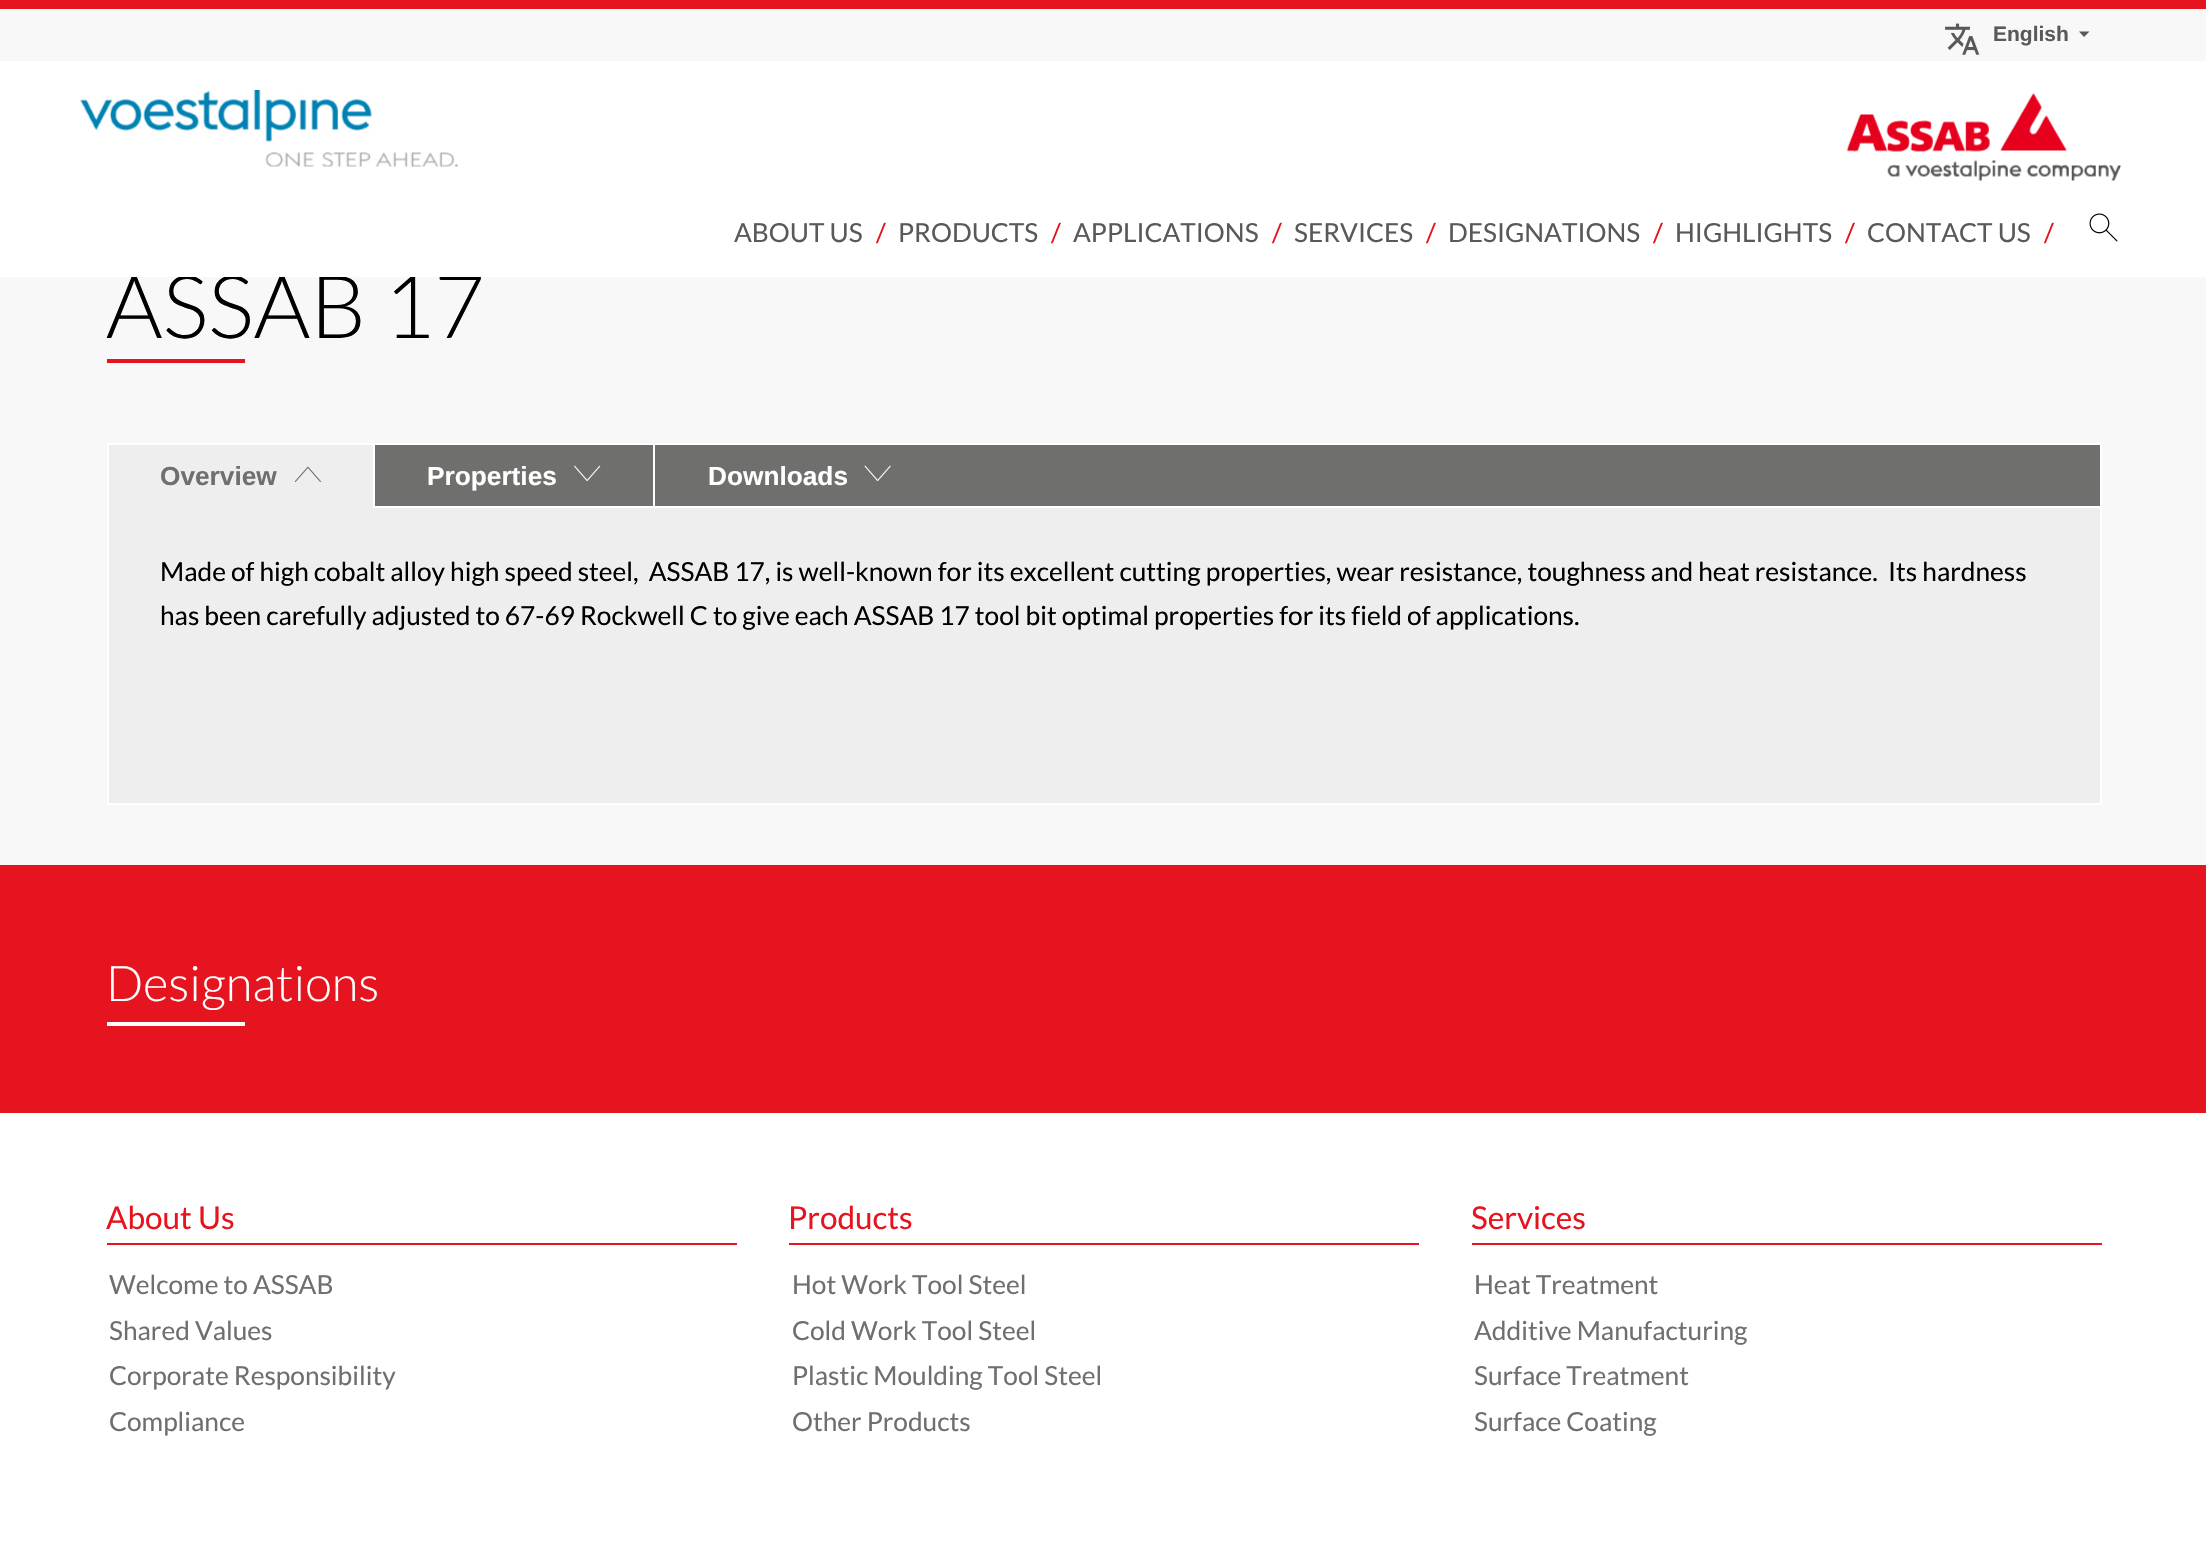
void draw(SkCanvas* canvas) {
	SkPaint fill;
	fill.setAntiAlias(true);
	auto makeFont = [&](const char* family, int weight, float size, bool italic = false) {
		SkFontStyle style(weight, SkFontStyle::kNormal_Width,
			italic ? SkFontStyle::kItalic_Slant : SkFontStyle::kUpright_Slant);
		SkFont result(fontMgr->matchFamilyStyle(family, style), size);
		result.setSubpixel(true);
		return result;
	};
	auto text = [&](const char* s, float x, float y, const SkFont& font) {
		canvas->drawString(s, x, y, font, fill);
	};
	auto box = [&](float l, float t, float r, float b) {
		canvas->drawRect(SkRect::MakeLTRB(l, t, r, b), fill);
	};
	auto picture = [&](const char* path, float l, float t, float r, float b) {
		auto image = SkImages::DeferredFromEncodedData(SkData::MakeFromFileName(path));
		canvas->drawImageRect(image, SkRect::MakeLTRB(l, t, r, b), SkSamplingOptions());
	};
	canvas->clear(0xFFF8F8F8);
	fill.setColor(0xFFE6141E);
	box(0, 0, 2206, 9);
	picture("image0.png", 1945, 23, 1980, 55);
	fill.setColor(0xFF595959);
	canvas->drawPath(SkPathBuilder().moveTo(2079, 31.5f).lineTo(2089.5f, 31.5f).lineTo(2084, 37).close().detach(), fill);
	fill.setColor(0xFFE6141E);
	box(107, 359, 245, 363);
	fill.setColor(0xFFEEEEEE);
	box(109, 508, 2100, 803);
	fill.setStyle(SkPaint::kStroke_Style);
	fill.setStrokeWidth(2);
	fill.setColor(0xFFFFFFFF);
	canvas->drawRect(SkRect::MakeLTRB(108, 444, 2101, 804), fill);
	fill.setStyle(SkPaint::kFill_Style);
	fill.setColor(0xFF6F6F6E);
	box(375, 445, 2100, 506);
	fill.setColor(0xFFFFFFFF);
	box(375, 506, 2100, 508);
	fill.setColor(0xFFEEEEEE);
	box(109, 445, 373, 508);
	fill.setColor(0xFFFFFFFF);
	box(373, 445, 375, 508);
	picture("image4.png", 294, 466, 321, 482);
	box(653, 445, 655, 508);
	picture("image5.png", 574, 465, 601, 481);
	picture("image6.png", 864, 465, 891, 481);
	fill.setColor(0xFFE6141E);
	box(0, 865, 2206, 1113);
	fill.setColor(0xFFFFFFFF);
	box(107, 1022, 245, 1026);
	box(0, 1113, 2206, 1568);
	fill.setColor(0xFFE6141E);
	box(107, 1243, 737, 1245);
	box(789, 1243, 1419, 1245);
	box(1472, 1243, 2102, 1245);
	auto font1 = makeFont("Liberation Sans", 700, 21);
	fill.setColor(0xFF595959);
	text("English", 1993, 41, font1);
	auto font2 = makeFont("Lato", 300, 87.5f);
	fill.setColor(0xFF000000);
	text("ASSAB 17", 106, 338, font2);
	fill.setColor(0xFFFFFFFF);
	box(0, 61, 2206, 277);
	auto font3 = makeFont("Lato", 400, 26.25f);
	fill.setColor(0xFF595959);
	text("CONTACT US", 1867, 242, font3);
	text("HIGHLIGHTS", 1675, 242, font3);
	text("DESIGNATIONS", 1448, 242, font3);
	text("SERVICES", 1294, 242, font3);
	text("APPLICATIONS", 1073, 242, font3);
	text("PRODUCTS", 898, 242, font3);
	text("ABOUT US", 734, 242, font3);
	fill.setColor(0xFFE6141E);
	text("/", 2044, 242, font3);
	text("/", 1845, 242, font3);
	text("/", 1653, 242, font3);
	text("/", 1426, 242, font3);
	text("/", 1272, 242, font3);
	text("/", 1051, 242, font3);
	text("/", 876, 242, font3);
	picture("image3.png", 2089, 213, 2118, 242);
	picture("image2.png", 1846, 93, 2121, 181);
	picture("image1.png", 79, 90, 458, 167);
	auto font4 = makeFont("Liberation Sans", 700, 26.25f);
	fill.setColor(0xFF6F6F6E);
	text("Overview", 160, 485, font4);
	fill.setColor(0xFFFFFFFF);
	text("Properties", 427, 485, font4);
	text("Downloads", 708, 485, font4);
	fill.setColor(0xFF000000);
	text("Made of high cobalt alloy high speed steel,  ASSAB 17, is well-known for its excellent cutting properties, wear resistance, toughness and heat resistance.  Its hardness", 160, 581, font3);
	text("has been carefully adjusted to 67-69 Rockwell C to give each ASSAB 17 tool bit optimal properties for its field of applications.", 160, 625, font3);
	auto font5 = makeFont("Lato", 300, 49);
	fill.setColor(0xFFFFFFFF);
	text("Designations", 106, 1001, font5);
	auto font6 = makeFont("Lato", 400, 31.5f);
	fill.setColor(0xFFE6141E);
	text("About Us", 106, 1229, font6);
	fill.setColor(0xFF6F6F6E);
	text("Welcome to ASSAB", 109, 1294, font3);
	text("Shared Values", 109, 1340, font3);
	text("Corporate Responsibility", 109, 1385, font3);
	text("Compliance", 109, 1431, font3);
	fill.setColor(0xFFE6141E);
	text("Products", 788, 1229, font6);
	fill.setColor(0xFF6F6F6E);
	text("Hot Work Tool Steel", 792, 1294, font3);
	text("Cold Work Tool Steel", 792, 1340, font3);
	text("Plastic Moulding Tool Steel", 792, 1385, font3);
	text("Other Products", 792, 1431, font3);
	fill.setColor(0xFFE6141E);
	text("Services", 1471, 1229, font6);
	fill.setColor(0xFF6F6F6E);
	text("Heat Treatment", 1474, 1294, font3);
	text("Additive Manufacturing", 1474, 1340, font3);
	text("Surface Treatment", 1474, 1385, font3);
	text("Surface Coating", 1474, 1431, font3);
}
